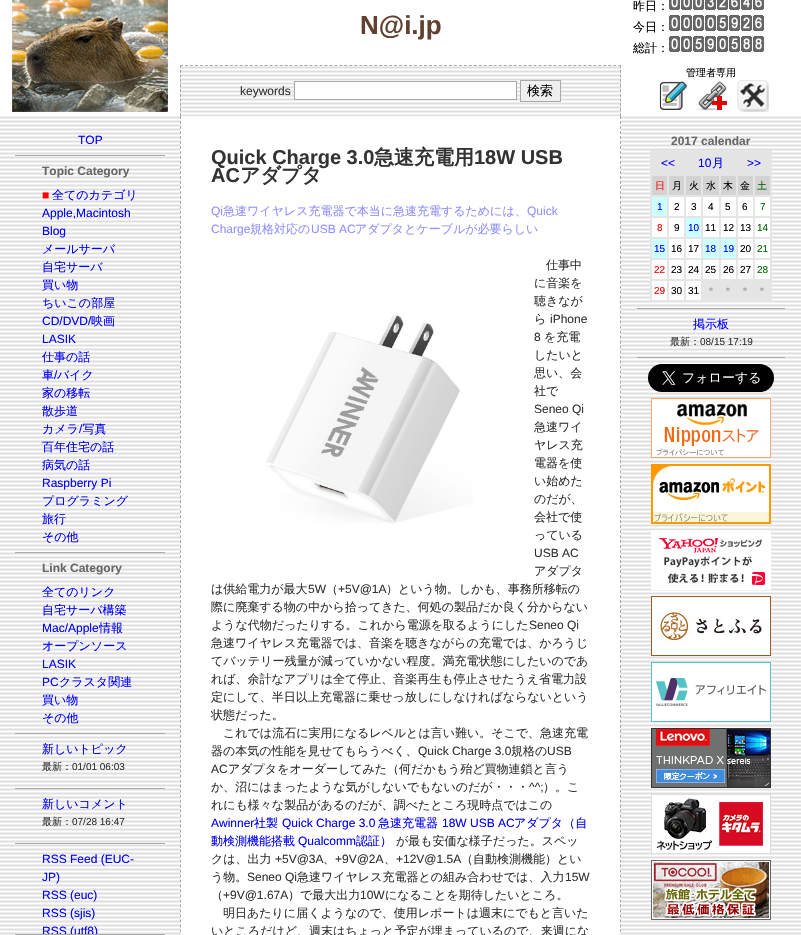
void draw(SkCanvas* canvas) {
	SkPaint fill;
	fill.setAntiAlias(true);
	auto makeFont = [&](const char* family, int weight, float size, bool italic = false) {
		SkFontStyle style(weight, SkFontStyle::kNormal_Width,
			italic ? SkFontStyle::kItalic_Slant : SkFontStyle::kUpright_Slant);
		SkFont result(fontMgr->matchFamilyStyle(family, style), size);
		result.setSubpixel(true);
		return result;
	};
	auto text = [&](const char* s, float x, float y, const SkFont& font) {
		canvas->drawString(s, x, y, font, fill);
	};
	auto box = [&](float l, float t, float r, float b) {
		canvas->drawRect(SkRect::MakeLTRB(l, t, r, b), fill);
	};
	auto picture = [&](const char* path, float l, float t, float r, float b) {
		auto image = SkImages::DeferredFromEncodedData(SkData::MakeFromFileName(path));
		canvas->drawImageRect(image, SkRect::MakeLTRB(l, t, r, b), SkSamplingOptions());
	};
	canvas->clear(0xFFFFFFFF);
	picture("image0.png", 12, 0, 168, 112);
	picture("image1.png", 669, 0, 680, 10);
	picture("image1.png", 681, 0, 692, 10);
	picture("image1.png", 693, 0, 704, 10);
	picture("image2.png", 705, 0, 716, 10);
	picture("image3.png", 717, 0, 728, 10);
	picture("image4.png", 729, 0, 740, 10);
	picture("image5.png", 741, 0, 752, 10);
	picture("image4.png", 753, 0, 764, 10);
	picture("image6.png", 669, 15, 680, 31);
	picture("image6.png", 681, 15, 692, 31);
	picture("image6.png", 693, 15, 704, 31);
	picture("image6.png", 705, 15, 716, 31);
	picture("image7.png", 717, 15, 728, 31);
	picture("image8.png", 729, 15, 740, 31);
	picture("image9.png", 741, 15, 752, 31);
	picture("image10.png", 753, 15, 764, 31);
	picture("image6.png", 669, 36, 680, 52);
	picture("image6.png", 681, 36, 692, 52);
	picture("image7.png", 693, 36, 704, 52);
	picture("image8.png", 705, 36, 716, 52);
	picture("image6.png", 717, 36, 728, 52);
	picture("image7.png", 729, 36, 740, 52);
	picture("image11.png", 741, 36, 752, 52);
	picture("image11.png", 753, 36, 764, 52);
	picture("image12.png", 659, 81, 687, 110);
	picture("image13.png", 696, 81, 727, 111);
	picture("image14.png", 737, 80, 769, 112);
	picture("image15.png", 180, 66, 621, 116);
	fill.setStyle(SkPaint::kStroke_Style);
	fill.setStrokeWidth(1);
	fill.setColor(0xFFA9A9A9);
	fill.setPathEffect(SkDashPathEffect::Make({{3, 1.98f}}, 0));
	canvas->drawPath(SkPathBuilder().moveTo(180, 65.5f).lineTo(621, 65.5f).detach(), fill);
	fill.setPathEffect(nullptr);
	fill.setPathEffect(SkDashPathEffect::Make({{3, 1.8f}}, 0));
	canvas->drawPath(SkPathBuilder().moveTo(620.5f, 65).lineTo(620.5f, 116).detach(), fill);
	fill.setPathEffect(nullptr);
	fill.setPathEffect(SkDashPathEffect::Make({{3, 1.8f}}, 0));
	canvas->drawPath(SkPathBuilder().moveTo(180.5f, 65).lineTo(180.5f, 116).detach(), fill);
	fill.setPathEffect(nullptr);
	fill.setStyle(SkPaint::kFill_Style);
	fill.setColor(0xFFFFFFFF);
	canvas->drawRect(SkRect::MakeLTRB(294.5f, 81.5f, 516.5f, 99.5f), fill);
	fill.setStyle(SkPaint::kStroke_Style);
	fill.setColor(0xFFA9A9A9);
	canvas->drawRect(SkRect::MakeLTRB(294.5f, 81.5f, 516.5f, 99.5f), fill);
	fill.setStyle(SkPaint::kFill_Style);
	fill.setColor(0xFFEFEFEF);
	box(521, 81, 560, 100);
	fill.setStyle(SkPaint::kStroke_Style);
	fill.setColor(0xFFA9A9A9);
	canvas->drawRect(SkRect::MakeLTRB(520.5f, 80.5f, 560.5f, 101.5f), fill);
	picture("image16.png", 0, 116, 180, 935);
	fill.setStyle(SkPaint::kFill_Style);
	box(15, 155, 165, 156);
	box(15, 552, 165, 553);
	box(15, 733, 165, 734);
	box(15, 788, 165, 789);
	box(15, 843, 165, 844);
	fill.setStyle(SkPaint::kStroke_Style);
	fill.setPathEffect(SkDashPathEffect::Make({{3, 1.99f}}, 0));
	canvas->drawPath(SkPathBuilder().moveTo(620.5f, 116).lineTo(620.5f, 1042).detach(), fill);
	fill.setPathEffect(nullptr);
	fill.setPathEffect(SkDashPathEffect::Make({{3, 1.99f}}, 0));
	canvas->drawPath(SkPathBuilder().moveTo(180.5f, 116).lineTo(180.5f, 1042).detach(), fill);
	fill.setPathEffect(nullptr);
	picture("image17.png", 265, 315, 473, 524);
	picture("image16.png", 621, 116, 801, 935);
	fill.setStyle(SkPaint::kFill_Style);
	fill.setColor(0xFFE5E5E5);
	box(650, 150, 772, 302);
	fill.setColor(0xFFD3D3D3);
	box(652, 176, 667, 195);
	box(669, 176, 684, 195);
	box(686, 176, 701, 195);
	box(703, 176, 719, 195);
	box(721, 176, 736, 195);
	box(738, 176, 753, 195);
	box(755, 176, 770, 195);
	fill.setColor(0xFFCCFFFF);
	box(652, 197, 667, 216);
	fill.setColor(0xFFFFFFFF);
	box(669, 197, 684, 216);
	box(686, 197, 701, 216);
	box(703, 197, 719, 216);
	box(721, 197, 736, 216);
	box(738, 197, 753, 216);
	box(755, 197, 770, 216);
	box(652, 218, 667, 237);
	box(669, 218, 684, 237);
	fill.setColor(0xFFCCFFFF);
	box(686, 218, 701, 237);
	fill.setColor(0xFFFFFFFF);
	box(703, 218, 719, 237);
	box(721, 218, 736, 237);
	box(738, 218, 753, 237);
	box(755, 218, 770, 237);
	fill.setColor(0xFFCCFFFF);
	box(652, 239, 667, 258);
	fill.setColor(0xFFFFFFFF);
	box(669, 239, 684, 258);
	box(686, 239, 701, 258);
	fill.setColor(0xFFCCFFFF);
	box(703, 239, 719, 258);
	box(721, 239, 736, 258);
	fill.setColor(0xFFFFFFFF);
	box(738, 239, 753, 258);
	box(755, 239, 770, 258);
	box(652, 260, 667, 279);
	box(669, 260, 684, 279);
	box(686, 260, 701, 279);
	box(703, 260, 719, 279);
	box(721, 260, 736, 279);
	box(738, 260, 753, 279);
	box(755, 260, 770, 279);
	box(652, 281, 667, 300);
	box(669, 281, 684, 300);
	box(686, 281, 701, 300);
	fill.setColor(0xFFA9A9A9);
	box(637, 308, 785, 309);
	box(637, 357, 785, 358);
	picture("image18.png", 648, 364, 774, 392);
	picture("image19.png", 651, 398, 771, 458);
	picture("image20.png", 651, 464, 771, 524);
	picture("image21.png", 651, 530, 771, 590);
	picture("image22.png", 651, 596, 771, 656);
	picture("image23.png", 651, 662, 771, 722);
	picture("image24.png", 651, 728, 771, 788);
	picture("image25.png", 651, 794, 771, 853);
	picture("image26.png", 651, 860, 771, 920);
	auto font1 = makeFont("Liberation Sans", 700, 26);
	fill.setColor(0xFF604030);
	text("N@i.jp", 360, 34, font1);
	auto font2 = makeFont("WenQuanYi Zen Hei", 500, 12);
	fill.setColor(0xFF000000);
	text("昨日：", 633, 10, font2);
	text("今日：", 633, 31, font2);
	text("総計：", 633, 52, font2);
	auto font3 = makeFont("WenQuanYi Zen Hei", 500, 10);
	text("管理者専用", 686, 76, font3);
	auto font4 = makeFont("Liberation Sans", 400, 12);
	fill.setColor(0xFF333333);
	text("keywords", 240, 95, font4);
	auto font5 = makeFont("WenQuanYi Zen Hei", 500, 13);
	fill.setColor(0xFF000000);
	text("検索", 527, 95, font5);
	fill.setColor(0xFF0000FF);
	text("TOP", 78, 144, font4);
	auto font6 = makeFont("Liberation Sans", 700, 12);
	fill.setColor(0xFF666666);
	text("Topic Category", 42, 175, font6);
	fill.setColor(0xFFFF0000);
	text("■", 42, 199, font4);
	fill.setColor(0xFF0000FF);
	text("全てのカテゴリ", 52, 199, font2);
	text("Apple,Macintosh", 42, 217, font4);
	text("Blog", 42, 235, font4);
	text("メールサーバ", 42, 253, font2);
	text("自宅サーバ", 42, 271, font2);
	text("買い物", 42, 289, font2);
	text("ちいこの部屋", 42, 307, font2);
	text("CD/DVD/", 42, 325, font4);
	text("映画", 91, 325, font2);
	text("LASIK", 42, 343, font4);
	text("仕事の話", 42, 361, font2);
	text("車", 42, 379, font2);
	text("/", 54, 379, font4);
	text("バイク", 57, 379, font2);
	text("家の移転", 42, 397, font2);
	text("散歩道", 42, 415, font2);
	text("カメラ 写真", 42, 433, font2);
	text("/", 79, 433, font4);
	text("百年住宅の話", 42, 451, font2);
	text("病気の話", 42, 469, font2);
	text("Raspberry Pi", 42, 487, font4);
	text("プログラミング", 42, 505, font2);
	text("旅行", 42, 523, font2);
	text("その他", 42, 541, font2);
	fill.setColor(0xFF666666);
	text("Link Category", 42, 572, font6);
	fill.setColor(0xFF0000FF);
	text("全てのリンク", 42, 596, font2);
	text("自宅サーバ構築", 42, 614, font2);
	text("Mac/Apple", 42, 632, font4);
	text("情報", 99, 632, font2);
	text("オープンソース", 42, 650, font2);
	text("LASIK", 42, 668, font4);
	text("PC", 42, 686, font4);
	text("クラスタ関連", 59, 686, font2);
	text("買い物", 42, 704, font2);
	text("その他", 42, 722, font2);
	text("新しいトピック", 42, 753, font2);
	fill.setColor(0xFF333333);
	text("最新：", 42, 770, font3);
	auto font7 = makeFont("Liberation Sans", 400, 10);
	text("01/01 06:03", 72, 770, font7);
	fill.setColor(0xFF0000FF);
	text("新しいコメント", 42, 808, font2);
	fill.setColor(0xFF333333);
	text("最新：", 42, 825, font3);
	text("07/28 16:47", 72, 825, font7);
	fill.setColor(0xFF0000FF);
	text("RSS Feed (EUC-", 42, 863, font4);
	text("JP)", 42, 881, font4);
	text("RSS (euc)", 42, 899, font4);
	text("RSS (sjis)", 42, 917, font4);
	text("RSS (utf8)", 42, 935, font4);
	fill.setColor(0xFFA9A9A9);
	box(15, 934, 165, 935);
	auto font8 = makeFont("Liberation Sans", 700, 20);
	fill.setColor(0xFF333333);
	text("Quick Charge 3.0", 211, 164, font8);
	auto font9 = makeFont("WenQuanYi Zen Hei", 700, 20);
	text("急速充電用", 374, 164, font9);
	text("18W USB", 474, 164, font8);
	text("AC", 211, 182, font8);
	text("アダプタ", 240, 182, font9);
	fill.setColor(0xFF9090FF);
	text("Qi", 211, 215, font4);
	text("急速ワイヤレス充電器で本当に急速充電するためには、", 223, 215, font2);
	text("Quick", 527, 215, font4);
	text("Charge", 211, 233, font4);
	text("規格対応の", 250, 233, font2);
	text("USB AC", 311, 233, font4);
	text("アダプタとケーブルが必要らしい", 355, 233, font2);
	fill.setColor(0xFF333333);
	text("仕事中", 546, 269, font2);
	text("に音楽を", 534, 287, font2);
	text("聴きなが", 534, 305, font2);
	text("ら", 534, 323, font2);
	text("iPhone", 550, 323, font4);
	text("8", 534, 341, font4);
	text("を充電", 544, 341, font2);
	text("したいと", 534, 359, font2);
	text("思い、会", 534, 377, font2);
	text("社で", 534, 395, font2);
	text("Seneo Qi", 534, 413, font4);
	text("急速ワイ", 534, 431, font2);
	text("ヤレス充", 534, 449, font2);
	text("電器を使", 534, 467, font2);
	text("い始めた", 534, 485, font2);
	text("のだが、", 534, 503, font2);
	text("会社で使", 534, 521, font2);
	text("っている", 534, 539, font2);
	text("USB AC", 534, 557, font4);
	text("アダプタ", 534, 575, font2);
	text("は供給電力が最大", 211, 593, font2);
	text("5W", 308, 593, font4);
	text("（", 326, 593, font2);
	text("+5V@1A", 338, 593, font4);
	text("）という物。しかも、事務所移転の", 386, 593, font2);
	text("際に廃棄する物の中から拾ってきた、何処の製品だか良く分からない", 211, 611, font2);
	text("ような代物だったりする。これから電源を取るようにした", 211, 629, font2);
	text("Seneo Qi", 529, 629, font4);
	text("急速ワイヤレス充電器では、音楽を聴きながらの充電では、かろうじ", 211, 647, font2);
	text("てバッテリー残量が減っていかない程度。満充電状態にしたいのであ", 211, 665, font2);
	text("れば、余計なアプリは全て停止、音楽再生も停止させたうえ省電力設", 211, 683, font2);
	text("定にして、半日以上充電器に乗せっ放しにしなければならないという", 211, 701, font2);
	text("状態だった。", 211, 719, font2);
	text("これでは流石に実用になるレベルとは言い難い。そこで、急速充電", 223, 737, font2);
	text("器の本気の性能を見せてもらうべく、", 211, 755, font2);
	text("Quick Charge 3.0", 418, 755, font4);
	text("規格の", 511, 755, font2);
	text("USB", 547, 755, font4);
	text("AC", 211, 773, font4);
	text("アダプタをオーダーしてみた（何だかもう殆ど買物連鎖と言う", 228, 773, font2);
	text("か、沼にはまったような気がしないでもないのだが・・・", 211, 791, font2);
	text("^^;", 529, 791, font4);
	text("）。こ", 543, 791, font2);
	text("れにも様々な製品があるのだが、調べたところ現時点ではこの", 211, 809, font2);
	fill.setColor(0xFF0000FF);
	text("Awinner", 211, 827, font4);
	text("社製", 254, 827, font2);
	text("Quick Charge 3.0", 282, 827, font4);
	text("急速充電器", 378, 827, font2);
	text("18W USB AC", 442, 827, font4);
	text("アダプタ（自", 514, 827, font2);
	text("動検測機能搭載", 211, 845, font2);
	text("Qualcomm", 298, 845, font4);
	text("認証）", 356, 845, font2);
	fill.setColor(0xFF333333);
	text("が最も安価な様子だった。スペッ", 396, 845, font2);
	text("クは、出力", 211, 863, font2);
	text("+5V@3A", 275, 863, font4);
	text("、", 323, 863, font2);
	text("+9V@2A", 335, 863, font4);
	text("、", 384, 863, font2);
	text("+12V@1.5A", 396, 863, font4);
	text("（自動検測機能）とい", 461, 863, font2);
	text("う物。", 211, 881, font2);
	text("Seneo Qi", 247, 881, font4);
	text("急速ワイヤレス充電器との組み合わせでは、入力", 297, 881, font2);
	text("15W", 565, 881, font4);
	text("（", 211, 899, font2);
	text("+9V@1.67A", 223, 899, font4);
	text("）で最大出力", 288, 899, font2);
	text("10W", 360, 899, font4);
	text("になることを期待したいところ。", 385, 899, font2);
	text("明日あたりに届くようなので、使用レポートは週末にでもと言いた", 223, 917, font2);
	text("いところだけど、週末はちょっと予定が埋まっているので、来週にな", 211, 935, font2);
	fill.setColor(0xFF666666);
	text("2017 calendar", 671, 145, font6);
	fill.setColor(0xFF0000FF);
	text("<<", 661, 167, font4);
	text("10", 698, 167, font4);
	text("月", 712, 167, font2);
	text(">>", 747, 167, font4);
	fill.setColor(0xFFFF0000);
	text("日", 655, 189, font3);
	fill.setColor(0xFF000000);
	text("月", 672, 189, font3);
	text("火", 689, 189, font3);
	text("水", 706, 189, font3);
	text("木", 723, 189, font3);
	text("金", 740, 189, font3);
	fill.setColor(0xFF006600);
	text("土", 757, 189, font3);
	fill.setColor(0xFF0000FF);
	text("1", 657, 210, font7);
	fill.setColor(0xFF000000);
	text("2", 674, 210, font7);
	text("3", 691, 210, font7);
	text("4", 708, 210, font7);
	text("5", 725, 210, font7);
	text("6", 742, 210, font7);
	fill.setColor(0xFF006600);
	text("7", 760, 210, font7);
	fill.setColor(0xFFFF0000);
	text("8", 657, 231, font7);
	fill.setColor(0xFF000000);
	text("9", 674, 231, font7);
	fill.setColor(0xFF0000FF);
	text("10", 688, 231, font7);
	fill.setColor(0xFF000000);
	text("11", 705, 231, font7);
	text("12", 723, 231, font7);
	text("13", 740, 231, font7);
	fill.setColor(0xFF006600);
	text("14", 757, 231, font7);
	fill.setColor(0xFF0000FF);
	text("15", 654, 252, font7);
	fill.setColor(0xFF000000);
	text("16", 671, 252, font7);
	text("17", 688, 252, font7);
	fill.setColor(0xFF0000FF);
	text("18", 705, 252, font7);
	text("19", 723, 252, font7);
	fill.setColor(0xFF000000);
	text("20", 740, 252, font7);
	fill.setColor(0xFF006600);
	text("21", 757, 252, font7);
	fill.setColor(0xFFFF0000);
	text("22", 654, 273, font7);
	fill.setColor(0xFF000000);
	text("23", 671, 273, font7);
	text("24", 688, 273, font7);
	text("25", 705, 273, font7);
	text("26", 723, 273, font7);
	text("27", 740, 273, font7);
	fill.setColor(0xFF006600);
	text("28", 757, 273, font7);
	fill.setColor(0xFFFF0000);
	text("29", 654, 294, font7);
	fill.setColor(0xFF000000);
	text("30", 671, 294, font7);
	text("31", 688, 294, font7);
	fill.setColor(0xFF999999);
	text("＊", 706, 294, font3);
	text("＊", 723, 294, font3);
	text("＊", 740, 294, font3);
	text("＊", 757, 294, font3);
	fill.setColor(0xFF0000FF);
	text("掲示板", 693, 328, font2);
	fill.setColor(0xFF333333);
	text("最新：", 670, 345, font3);
	text("08/15 17:19", 700, 345, font7);
}
